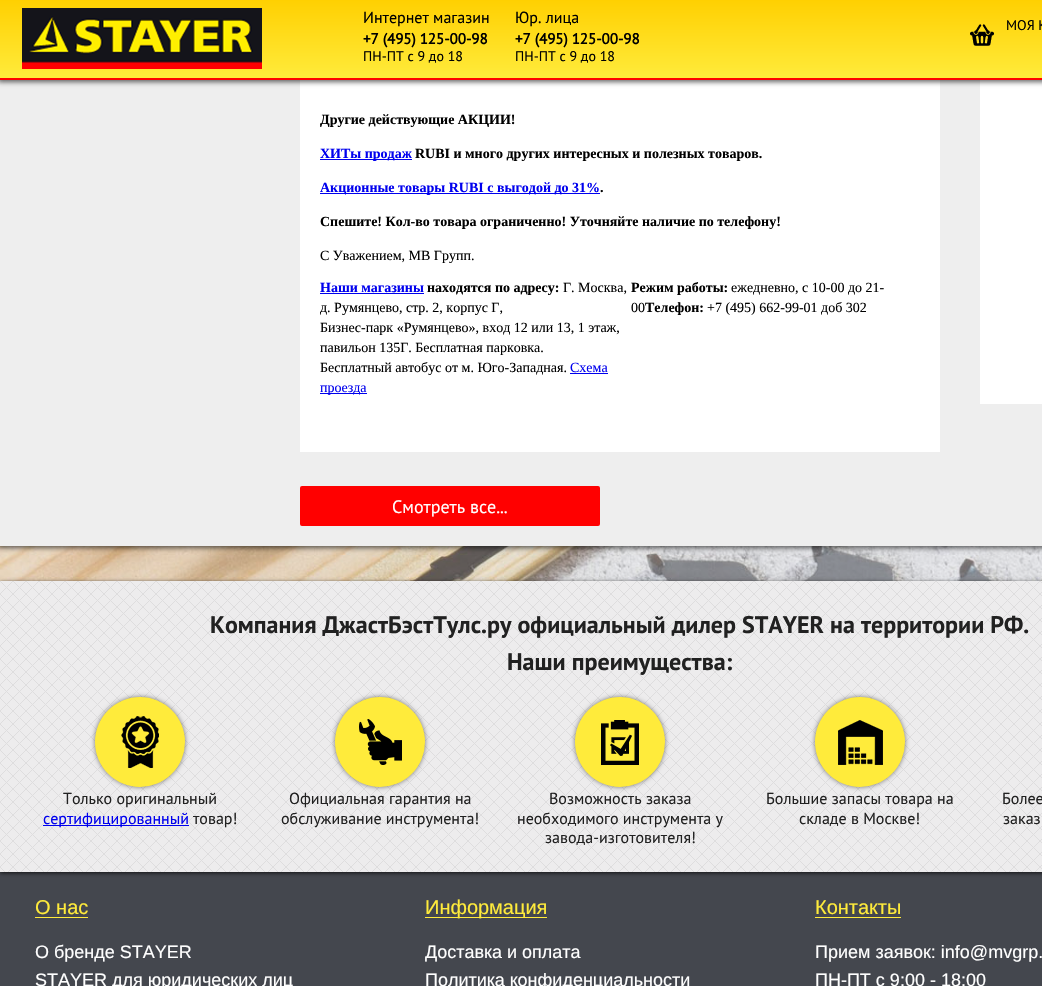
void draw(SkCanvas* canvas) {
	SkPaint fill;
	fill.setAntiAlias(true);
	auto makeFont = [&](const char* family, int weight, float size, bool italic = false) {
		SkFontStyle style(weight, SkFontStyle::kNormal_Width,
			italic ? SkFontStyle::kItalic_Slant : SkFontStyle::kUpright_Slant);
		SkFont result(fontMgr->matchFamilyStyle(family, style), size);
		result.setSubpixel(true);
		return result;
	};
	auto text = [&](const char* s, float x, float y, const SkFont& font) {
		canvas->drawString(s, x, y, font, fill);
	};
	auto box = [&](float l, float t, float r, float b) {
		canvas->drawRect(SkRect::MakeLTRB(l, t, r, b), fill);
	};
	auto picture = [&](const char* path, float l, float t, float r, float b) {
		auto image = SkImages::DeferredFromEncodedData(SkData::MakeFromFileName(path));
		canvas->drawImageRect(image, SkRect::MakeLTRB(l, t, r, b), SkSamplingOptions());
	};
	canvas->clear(0xFFFFFFFF);
	picture("image2.png", 0, 546, 1042, 581);
	fill.setColor(0x99000000);
	fill.setMaskFilter(SkMaskFilter::MakeBlur(kNormal_SkBlurStyle, 2.5f));
	canvas->drawRect(SkRect::MakeLTRB(-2, -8, 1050, 548), fill);
	fill.setMaskFilter(nullptr);
	fill.setColor(0xFFEEEEEE);
	box(0, 80, 1042, 546);
	fill.setColor(0xFFFFFFFF);
	box(300, 80, 940, 452);
	box(980, 80, 1042, 404);
	fill.setColor(0x99000000);
	fill.setMaskFilter(SkMaskFilter::MakeBlur(kNormal_SkBlurStyle, 2.5f));
	canvas->drawRect(SkRect::MakeLTRB(-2, -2, 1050, 82), fill);
	fill.setMaskFilter(nullptr);
	{
		const SkColor colors[] = {0xFFFFD001, 0xFFFFEB3B};
		const float stops[] = {0, 1};
		const SkPoint ends[] = {{620, 0}, {620, 78}};
		fill.setShader(SkGradientShader::MakeLinear(ends, colors, stops, 2, SkTileMode::kClamp));
		fill.setAlpha(255);
	}
	box(0, 0, 1042, 78);
	fill.setShader(nullptr);
	fill.setColor(0xFFFF0000);
	box(0, 78, 1042, 80);
	picture("image0.png", 22, 8, 262, 69);
	picture("image1.png", 970, 24, 994, 46);
	fill.setColor(0xFF0000EE);
	box(320, 159, 412, 160);
	box(320, 193, 600, 194);
	box(320, 293, 424, 294);
	box(570, 373, 608, 374);
	box(320, 393, 367, 394);
	fill.setColor(0xFFFF0000);
	canvas->drawRoundRect(SkRect::MakeLTRB(301, 487, 599, 525), 1, 1, fill);
	fill.setStyle(SkPaint::kStroke_Style);
	fill.setStrokeWidth(2);
	canvas->drawRoundRect(SkRect::MakeLTRB(301, 487, 599, 525), 1, 1, fill);
	fill.setStyle(SkPaint::kFill_Style);
	fill.setColor(0xFF44474E);
	box(0, 872, 1042, 986);
	fill.setColor(0xBF000000);
	fill.setMaskFilter(SkMaskFilter::MakeBlur(kNormal_SkBlurStyle, 2));
	canvas->drawRect(SkRect::MakeLTRB(0, 582, 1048, 873), fill);
	fill.setMaskFilter(nullptr);
	picture("image3.png", 0, 581, 1042, 872);
	fill.setColor(0x80000000);
	fill.setMaskFilter(SkMaskFilter::MakeBlur(kNormal_SkBlurStyle, 2.5f));
	canvas->drawRoundRect(SkRect::MakeLTRB(95, 697, 185, 787), 45, 45, fill);
	fill.setMaskFilter(nullptr);
	fill.setColor(0xFFFFEB3B);
	canvas->drawCircle(140, 742, 45, fill);
	picture("image4.png", 121, 716, 159, 768);
	fill.setColor(0xFF0000EE);
	box(43, 825, 189, 826);
	fill.setColor(0x80000000);
	fill.setMaskFilter(SkMaskFilter::MakeBlur(kNormal_SkBlurStyle, 2.5f));
	canvas->drawRoundRect(SkRect::MakeLTRB(335, 697, 425, 787), 45, 45, fill);
	fill.setMaskFilter(nullptr);
	fill.setColor(0xFFFFEB3B);
	canvas->drawCircle(380, 742, 45, fill);
	picture("image5.png", 359, 719, 402, 765);
	fill.setColor(0x80000000);
	fill.setMaskFilter(SkMaskFilter::MakeBlur(kNormal_SkBlurStyle, 2.5f));
	canvas->drawRoundRect(SkRect::MakeLTRB(575, 697, 665, 787), 45, 45, fill);
	fill.setMaskFilter(nullptr);
	fill.setColor(0xFFFFEB3B);
	canvas->drawCircle(620, 742, 45, fill);
	picture("image6.png", 601, 720, 639, 765);
	fill.setColor(0x80000000);
	fill.setMaskFilter(SkMaskFilter::MakeBlur(kNormal_SkBlurStyle, 2.5f));
	canvas->drawRoundRect(SkRect::MakeLTRB(815, 697, 905, 787), 45, 45, fill);
	fill.setMaskFilter(nullptr);
	fill.setColor(0xFFFFEB3B);
	canvas->drawCircle(860, 742, 45, fill);
	picture("image7.png", 838, 720, 883, 765);
	box(35, 917, 88, 918);
	box(425, 917, 547, 918);
	box(815, 917, 901, 918);
	auto font1 = makeFont("PT Sans", 400, 16);
	fill.setColor(0xFF000000);
	text("Интернет магазин", 363, 23, font1);
	auto font2 = makeFont("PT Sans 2", 700, 15);
	text("+7 (495) 125-00-98", 363, 44, font2);
	auto font3 = makeFont("PT Sans", 400, 14);
	text("ПН-ПТ с 9 до 18", 363, 61, font3);
	text("Юр. лица", 515, 23, font1);
	text("+7 (495) 125-00-98", 515, 44, font2);
	text("ПН-ПТ с 9 до 18", 515, 61, font3);
	text("МОЯ К", 1006, 30, font3);
	auto font4 = makeFont("Liberation Serif", 700, 14);
	text("Другие действующие АКЦИИ!", 320, 124, font4);
	fill.setColor(0xFF0000EE);
	text("ХИТы продаж", 320, 158, font4);
	fill.setColor(0xFF000000);
	text("RUBI и много других интересных и полезных товаров.", 415, 158, font4);
	fill.setColor(0xFF0000EE);
	text("Акционные товары RUBI с выгодой до 31%", 320, 192, font4);
	fill.setColor(0xFF000000);
	text(".", 600, 192, font4);
	text("Спешите! Кол-во товара ограниченно! Уточняйте наличие по телефону!", 320, 226, font4);
	auto font5 = makeFont("Liberation Serif", 400, 14);
	text("С Уважением, МВ Групп.", 320, 260, font5);
	fill.setColor(0xFF0000EE);
	text("Наши магазины", 320, 292, font4);
	fill.setColor(0xFF000000);
	text("находятся по адресу:", 427, 292, font4);
	text("Г. Москва,", 563, 292, font5);
	text("д. Румянцево, стр. 2, корпус Г,", 320, 312, font5);
	text("Бизнес-парк «Румянцево», вход 12 или 13, 1 этаж,", 320, 332, font5);
	text("павильон 135Г. Бесплатная парковка.", 320, 352, font5);
	text("Бесплатный автобус от м. Юго-Западная.", 320, 372, font5);
	fill.setColor(0xFF0000EE);
	text("Схема", 570, 372, font5);
	text("проезда", 320, 392, font5);
	fill.setColor(0xFF000000);
	text("Режим работы:", 631, 292, font4);
	text("ежедневно, с 10-00 до 21-", 731, 292, font5);
	text("00", 631, 312, font5);
	text("Телефон:", 645, 312, font4);
	text("+7 (495) 662-99-01 доб 302", 707, 312, font5);
	auto font6 = makeFont("PT Sans", 400, 18);
	fill.setColor(0xFFFFFFFF);
	text("Смотреть все...", 392, 513, font6);
	auto font7 = makeFont("PT Sans", 700, 24);
	fill.setColor(0xFF212121);
	text("Компания ДжастБэстТулс.ру официальный дилер STAYER на территории РФ.", 210, 633, font7);
	text("Наши преимущества:", 507, 670, font7);
	text("Только оригинальный", 63, 804, font1);
	fill.setColor(0xFF0000EE);
	text("сертифицированный", 43, 824, font1);
	fill.setColor(0xFF212121);
	text("товар!", 193, 824, font1);
	text("Официальная гарантия на", 289, 804, font1);
	text("обслуживание инструмента!", 281, 824, font1);
	text("Возможность заказа", 549, 804, font1);
	text("необходимого инструмента у", 517, 824, font1);
	text("завода-изготовителя!", 545, 843, font1);
	text("Большие запасы товара на", 766, 804, font1);
	text("складе в Москве!", 799, 824, font1);
	text("Более", 1002, 804, font1);
	text("заказ", 1003, 824, font1);
	auto font8 = makeFont("Liberation Sans", 400, 20);
	fill.setColor(0xFFFFEB3B);
	text("О нас", 35, 914, font8);
	auto font9 = makeFont("Liberation Sans", 400, 18);
	fill.setColor(0xFFFFFFFF);
	text("О бренде STAYER", 35, 958, font9);
	text("STAYER для юридических лиц", 35, 986, font9);
	fill.setColor(0xFFFFEB3B);
	text("Информация", 425, 914, font8);
	fill.setColor(0xFFFFFFFF);
	text("Доставка и оплата", 425, 958, font9);
	text("Политика конфиденциальности", 425, 986, font9);
	fill.setColor(0xFFFFEB3B);
	text("Контакты", 815, 914, font8);
	fill.setColor(0xFFFFFFFF);
	text("Прием заявок: info@mvgrp.", 815, 958, font9);
	text("ПН-ПТ с 9:00 - 18:00", 815, 986, font9);
}
